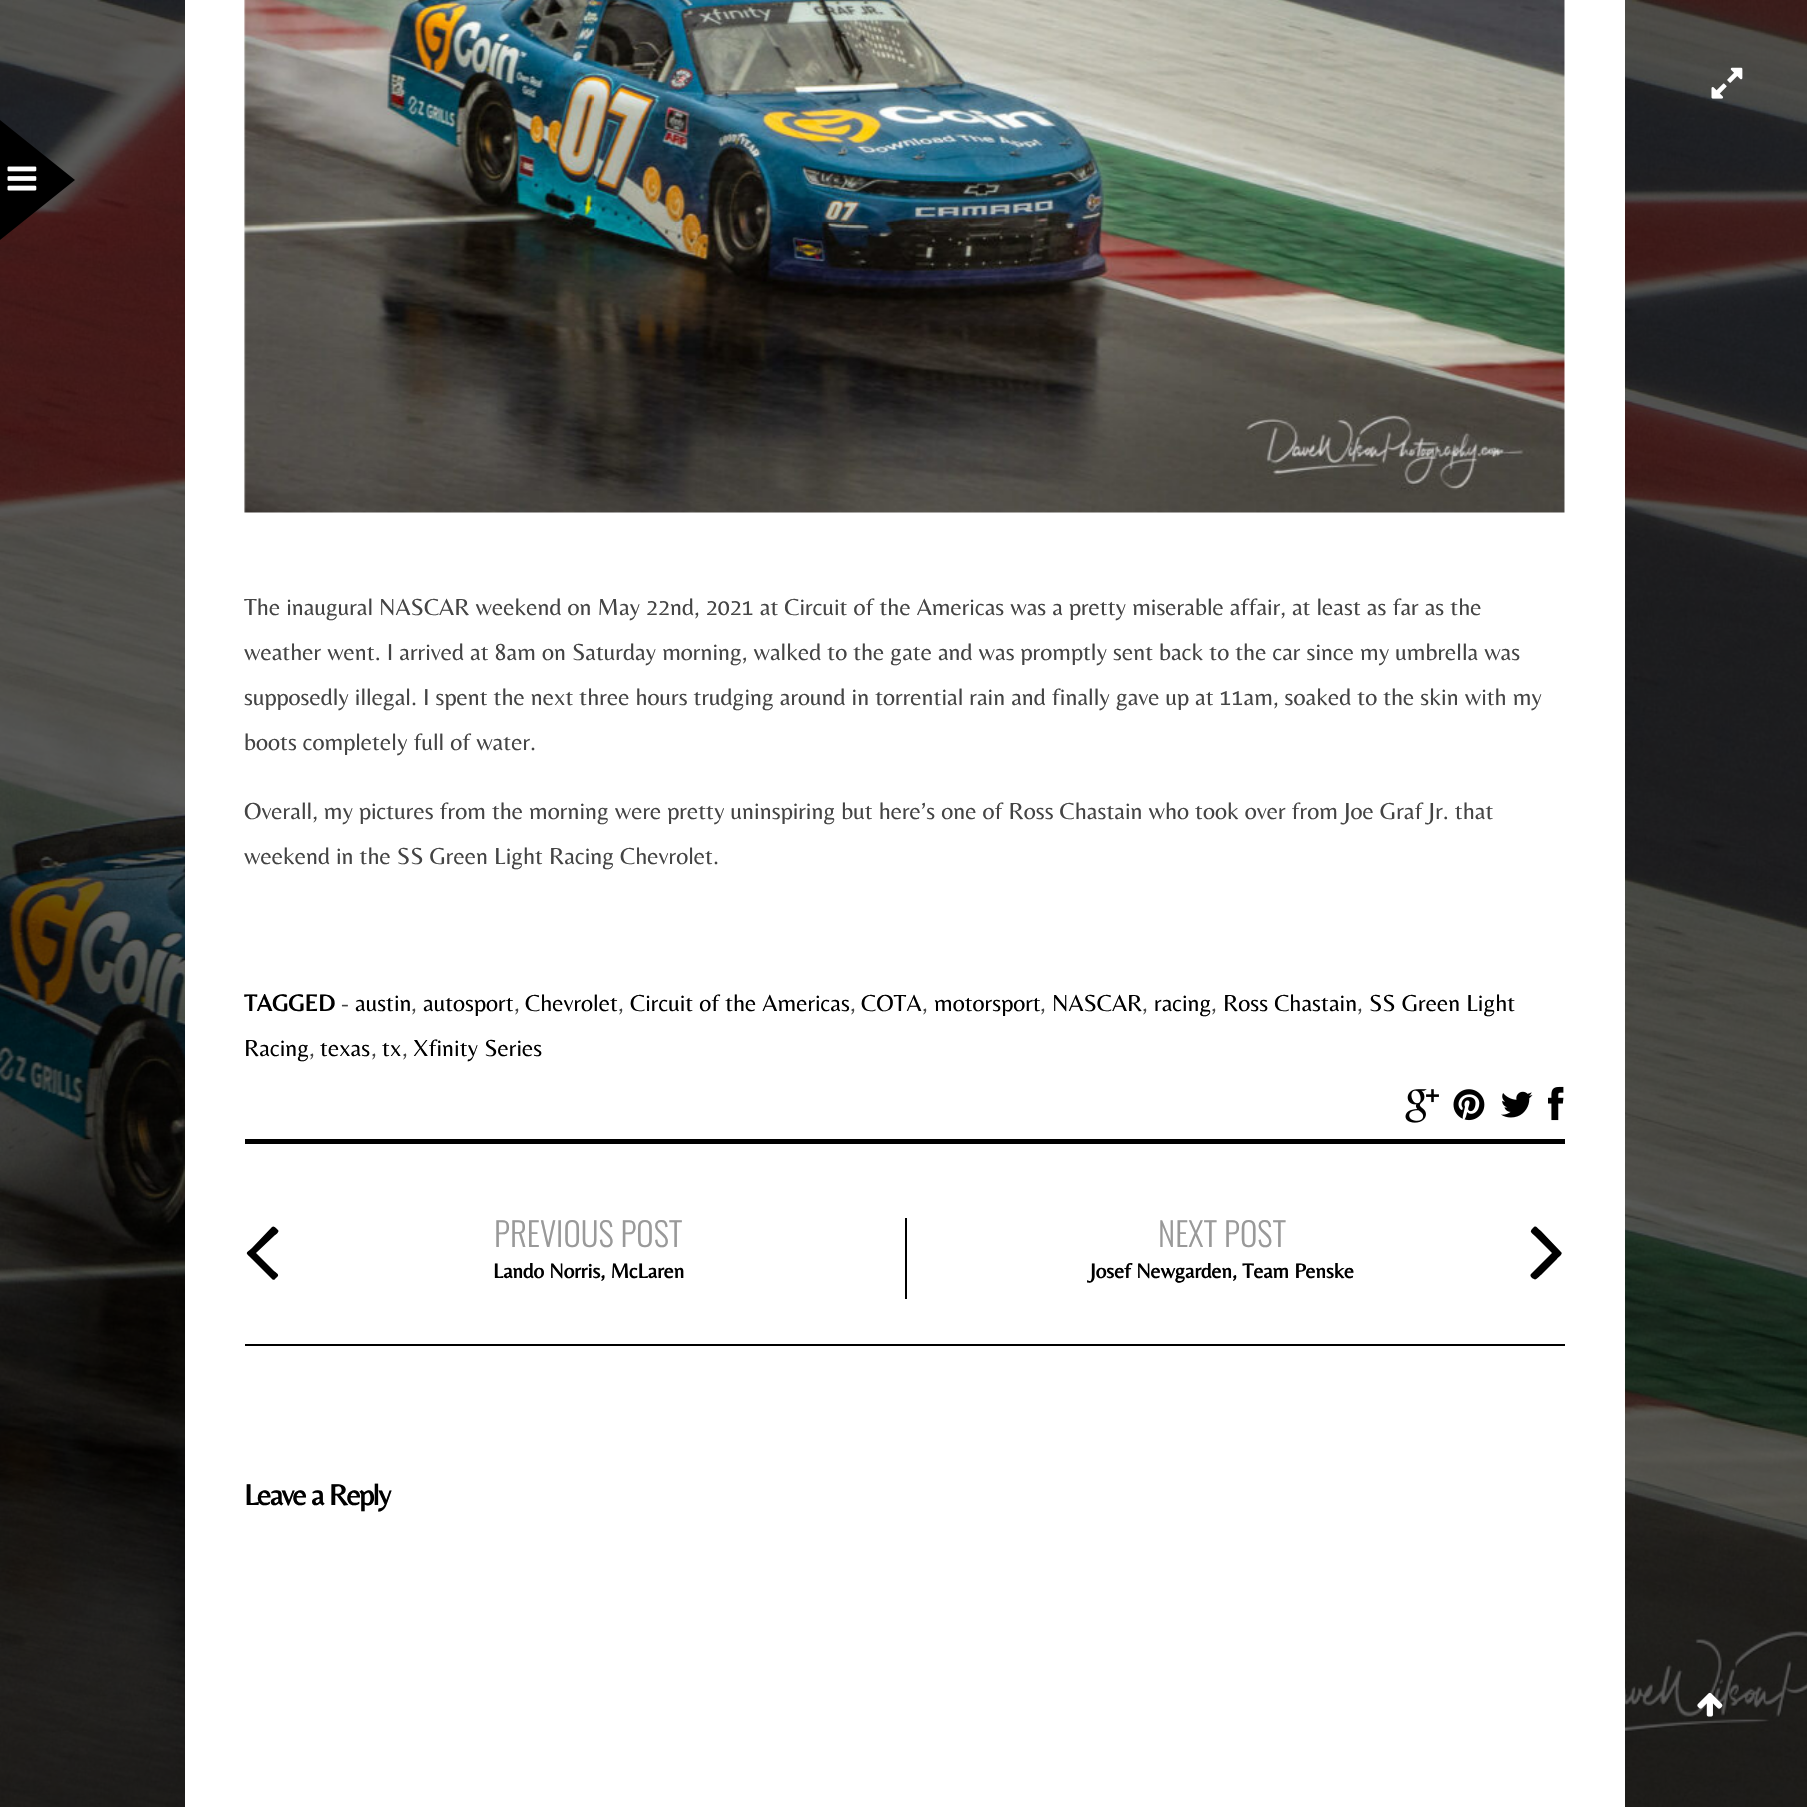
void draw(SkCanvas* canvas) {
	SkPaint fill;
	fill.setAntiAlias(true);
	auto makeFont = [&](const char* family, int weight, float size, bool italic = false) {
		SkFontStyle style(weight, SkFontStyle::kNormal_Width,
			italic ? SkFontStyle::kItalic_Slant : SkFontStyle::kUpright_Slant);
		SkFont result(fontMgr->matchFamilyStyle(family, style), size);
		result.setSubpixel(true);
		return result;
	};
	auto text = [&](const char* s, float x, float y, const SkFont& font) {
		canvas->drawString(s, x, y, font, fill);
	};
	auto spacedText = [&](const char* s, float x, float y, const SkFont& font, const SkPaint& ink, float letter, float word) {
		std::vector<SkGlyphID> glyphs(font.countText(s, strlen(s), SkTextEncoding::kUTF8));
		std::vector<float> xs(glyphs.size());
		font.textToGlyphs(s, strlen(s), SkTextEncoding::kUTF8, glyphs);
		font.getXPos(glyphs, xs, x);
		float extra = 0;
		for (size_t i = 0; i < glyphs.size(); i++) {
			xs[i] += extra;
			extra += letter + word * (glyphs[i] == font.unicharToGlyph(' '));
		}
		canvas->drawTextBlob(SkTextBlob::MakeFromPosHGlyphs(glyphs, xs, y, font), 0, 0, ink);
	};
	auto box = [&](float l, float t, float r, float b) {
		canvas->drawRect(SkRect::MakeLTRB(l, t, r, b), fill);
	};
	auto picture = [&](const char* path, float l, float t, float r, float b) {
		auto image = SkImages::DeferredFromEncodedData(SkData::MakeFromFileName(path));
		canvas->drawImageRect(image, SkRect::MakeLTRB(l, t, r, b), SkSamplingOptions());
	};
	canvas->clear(0xFF000000);
	picture("image0.png", 0, 0, 1807, 1807);
	fill.setColor(0xFF000000);
	canvas->drawPath(SkPathBuilder().moveTo(0, 240).lineTo(0, 120).lineTo(75, 180).close().detach(), fill);
	picture("image1.png", 7, 166, 37, 191);
	picture("image2.png", 1711, 67, 1743, 99);
	fill.setColor(0xFFFFFFFF);
	box(185, 0, 1625, 1807);
	picture("image3.png", 244, 0, 1565, 513);
	picture("image4.png", 1405, 1089, 1439, 1123);
	picture("image5.png", 1453, 1089, 1485, 1121);
	picture("image6.png", 1501, 1091, 1533, 1118);
	picture("image7.png", 1548, 1086, 1564, 1121);
	fill.setColor(0xFF000000);
	box(245, 1139, 1565, 1144);
	box(905, 1218, 907, 1299);
	canvas->drawPath(SkPathBuilder().moveTo(278, 1230).cubicTo(280, 1232, 275, 1235, 274, 1236).lineTo(256, 1253).lineTo(274, 1271).cubicTo(278, 1274, 280, 1275, 276, 1278).cubicTo(275, 1279, 274, 1281, 272, 1279).lineTo(252, 1259).cubicTo(245, 1252, 245, 1254, 252, 1248).lineTo(272, 1227).cubicTo(274, 1225, 277, 1229, 278, 1230).close().detach(), fill);
	canvas->drawPath(SkPathBuilder().moveTo(1561, 1252).cubicTo(1564, 1254, 1557, 1258, 1557, 1259).lineTo(1541, 1275).cubicTo(1540, 1275, 1536, 1281, 1534, 1279).cubicTo(1533, 1279, 1529, 1276, 1531, 1274).lineTo(1552, 1253).lineTo(1535, 1236).cubicTo(1531, 1232, 1529, 1232, 1533, 1228).cubicTo(1536, 1225, 1536, 1227, 1541, 1231).close().detach(), fill);
	box(245, 1344, 1565, 1346);
	picture("image8.png", 1697, 1692, 1723, 1717);
	auto font1 = makeFont("Belleza", 400, 24);
	fill.setColor(0xFF444444);
	text("The inaugural NASCAR weekend on May 22nd, 2021 at Circuit of the Americas was a pretty miserable affair, at least as far as the", 244, 615, font1);
	text("weather went. I arrived at 8am on Saturday morning, walked to the gate and was promptly sent back to the car since my umbrella was", 244, 660, font1);
	text("supposedly illegal. I spent the next three hours trudging around in torrential rain and finally gave up at 11am, soaked to the skin with my", 244, 705, font1);
	text("boots completely full of water.", 244, 750, font1);
	text("Overall, my pictures from the morning were pretty uninspiring but here’s one of Ross Chastain who took over from Joe Graf Jr. that", 244, 819, font1);
	text("weekend in the SS Green Light Racing Chevrolet.", 244, 864, font1);
	auto font2 = makeFont("Belleza", 700, 24);
	fill.setColor(0xFF000000);
	text("TAGGED", 244, 1011, font2);
	fill.setColor(0xFF444444);
	text("-", 341, 1011, font1);
	fill.setColor(0xFF000000);
	text("austin", 355, 1011, font1);
	text("autosport", 423, 1011, font1);
	text("Chevrolet", 525, 1011, font1);
	text("Circuit of the Americas", 630, 1011, font1);
	text("COTA", 861, 1011, font1);
	text("motorsport", 934, 1011, font1);
	text("NASCAR", 1052, 1011, font1);
	text("racing", 1154, 1011, font1);
	text("Ross Chastain", 1223, 1011, font1);
	text("SS Green Light", 1369, 1011, font1);
	fill.setColor(0xFF444444);
	text(",", 411, 1011, font1);
	text(",", 514, 1011, font1);
	text(",", 618, 1011, font1);
	text(",", 850, 1011, font1);
	text(",", 922, 1011, font1);
	text(",", 1040, 1011, font1);
	text(",", 1142, 1011, font1);
	text(",", 1211, 1011, font1);
	text(",", 1357, 1011, font1);
	fill.setColor(0xFF000000);
	text("Racing", 244, 1056, font1);
	fill.setColor(0xFF444444);
	text(",", 309, 1056, font1);
	fill.setColor(0xFF000000);
	text("texas", 320, 1056, font1);
	fill.setColor(0xFF444444);
	text(",", 371, 1056, font1);
	fill.setColor(0xFF000000);
	text("tx", 382, 1056, font1);
	fill.setColor(0xFF444444);
	text(",", 402, 1056, font1);
	fill.setColor(0xFF000000);
	text("Xfinity Series", 413, 1056, font1);
	auto font3 = makeFont("Oswald", 300, 33);
	fill.setColor(0xFF999999);
	text("PREVIOUS POST", 494, 1247, font3);
	auto font4 = makeFont("Belleza", 700, 21);
	fill.setColor(0xFF000000);
	text("Lando Norris, McLaren", 493, 1278, font4);
	fill.setColor(0xFF999999);
	text("NEXT POST", 1158, 1247, font3);
	fill.setColor(0xFF000000);
	text("Josef Newgarden, Team Penske", 1090, 1278, font4);
	auto font5 = makeFont("Belleza", 700, 30);
	spacedText("Leave a Reply", 244, 1505, font5, fill, -1.5f, 0);
}
